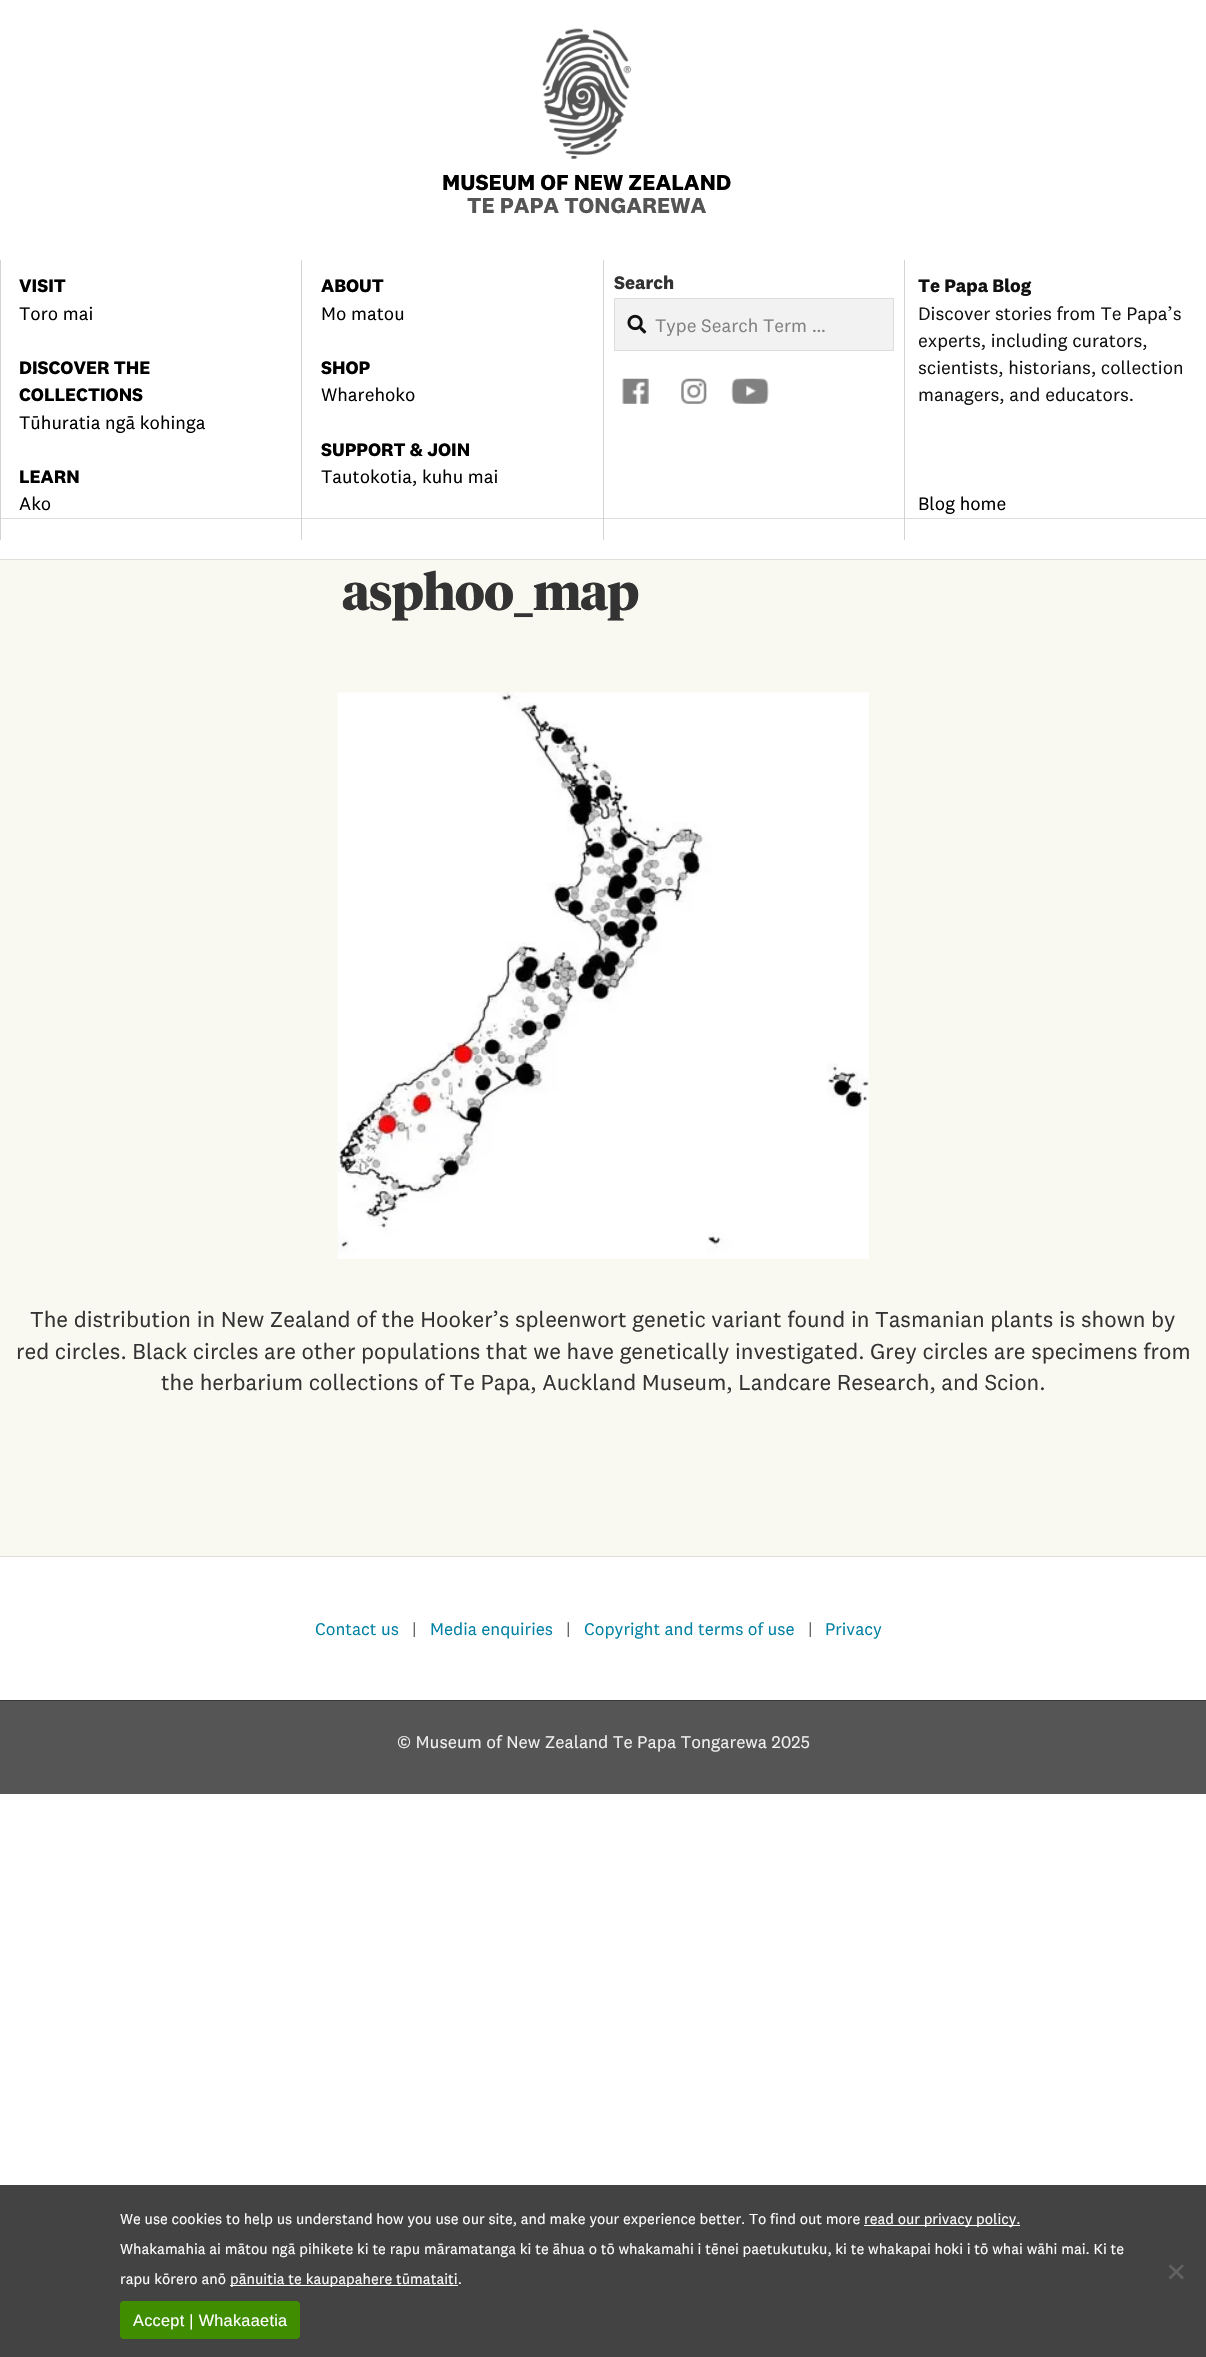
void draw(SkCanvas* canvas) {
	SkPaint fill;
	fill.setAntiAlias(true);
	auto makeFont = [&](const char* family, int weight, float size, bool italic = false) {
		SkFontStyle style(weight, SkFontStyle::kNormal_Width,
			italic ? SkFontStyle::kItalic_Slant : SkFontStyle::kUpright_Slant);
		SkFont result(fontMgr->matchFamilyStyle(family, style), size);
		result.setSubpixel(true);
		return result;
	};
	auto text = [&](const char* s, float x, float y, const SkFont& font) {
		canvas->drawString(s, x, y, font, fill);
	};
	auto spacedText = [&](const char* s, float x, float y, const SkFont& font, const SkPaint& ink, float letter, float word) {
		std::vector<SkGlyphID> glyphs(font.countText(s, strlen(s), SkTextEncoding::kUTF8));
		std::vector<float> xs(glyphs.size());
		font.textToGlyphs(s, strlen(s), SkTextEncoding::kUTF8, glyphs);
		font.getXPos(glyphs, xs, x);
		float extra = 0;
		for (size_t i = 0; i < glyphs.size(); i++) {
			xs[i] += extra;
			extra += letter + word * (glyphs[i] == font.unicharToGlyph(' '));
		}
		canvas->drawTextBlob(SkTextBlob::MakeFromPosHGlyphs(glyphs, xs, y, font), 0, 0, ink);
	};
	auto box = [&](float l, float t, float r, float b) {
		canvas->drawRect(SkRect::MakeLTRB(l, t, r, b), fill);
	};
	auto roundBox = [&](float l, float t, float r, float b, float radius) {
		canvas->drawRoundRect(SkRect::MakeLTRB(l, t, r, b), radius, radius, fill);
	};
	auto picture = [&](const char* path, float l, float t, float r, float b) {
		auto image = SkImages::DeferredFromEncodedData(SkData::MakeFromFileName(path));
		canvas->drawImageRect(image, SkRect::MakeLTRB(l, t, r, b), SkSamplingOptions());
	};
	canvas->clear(0xFFFFFFFF);
	fill.setColor(0xFFDFDFD9);
	box(0, 559, 1206, 560);
	picture("image0.png", 542, 28, 631, 159);
	fill.setColor(0xFFDDDDDD);
	box(904, 518, 1206, 519);
	fill.setColor(0xFFD4D2D2);
	box(904, 518, 905, 540);
	fill.setColor(0xFFDDDDDD);
	box(603, 518, 905, 519);
	fill.setColor(0xFFD4D2D2);
	box(603, 518, 604, 540);
	fill.setColor(0xFFDDDDDD);
	box(301, 518, 604, 519);
	fill.setColor(0xFFD4D2D2);
	box(301, 518, 302, 540);
	fill.setColor(0xFFDDDDDD);
	box(0, 518, 303, 519);
	fill.setColor(0xFFD4D2D2);
	box(0, 260, 1, 540);
	box(301, 260, 302, 519);
	box(603, 260, 604, 519);
	fill.setColor(0xFFF2F2F2);
	canvas->drawRect(SkRect::MakeLTRB(614.5f, 298.5f, 893.5f, 350.5f), fill);
	fill.setStyle(SkPaint::kStroke_Style);
	fill.setStrokeWidth(1);
	fill.setColor(0xFFDDDDDD);
	canvas->drawRect(SkRect::MakeLTRB(614.5f, 298.5f, 893.5f, 350.5f), fill);
	picture("image1.png", 627, 314, 647, 334);
	picture("image2.png", 622, 378, 649, 404);
	picture("image3.png", 681, 378, 707, 404);
	picture("image4.png", 731, 378, 769, 404);
	fill.setStyle(SkPaint::kFill_Style);
	fill.setColor(0xFFD4D2D2);
	box(904, 260, 905, 519);
	fill.setColor(0xFFF9F9F2);
	box(0, 560, 1206, 1556);
	picture("image5.png", 337, 692, 869, 1259);
	fill.setColor(0xFFDFDFD9);
	box(0, 1556, 1206, 1557);
	fill.setColor(0xFF555555);
	box(0, 1701, 1206, 1794);
	fill.setColor(0xFF393939);
	box(0, 1700, 1206, 1701);
	fill.setColor(0xFF434343);
	box(0, 2185, 1206, 2357);
	fill.setColor(0xFFFFFFFF);
	box(864, 2225, 1020, 2226);
	box(230, 2285, 458, 2286);
	fill.setColor(0xFF626262);
	canvas->drawPath(SkPathBuilder().moveTo(1182, 2264.5f).lineTo(1184, 2266).lineTo(1170.5f, 2279.5f).lineTo(1168.5f, 2277.5f).close().detach(), fill);
	canvas->drawPath(SkPathBuilder().moveTo(1168.5f, 2266).lineTo(1170.5f, 2264.5f).lineTo(1184, 2277.5f).lineTo(1182, 2279.5f).close().detach(), fill);
	fill.setColor(0xFF408E00);
	roundBox(120, 2301, 300, 2339, 4);
	auto font1 = makeFont("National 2", 700, 22.5f);
	fill.setColor(0xFF000000);
	text("MUSEUM OF NEW ZEALAND", 442, 190, font1);
	fill.setColor(0xFF555555);
	text("TE PAPA TONGAREWA", 467, 213, font1);
	auto font2 = makeFont("National 2", 700, 18.75f);
	fill.setColor(0xFF000000);
	text("VISIT", 19, 292, font2);
	auto font3 = makeFont("National 2", 400, 18.75f);
	text("Toro mai", 19, 320, font3);
	text("DISCOVER THE", 19, 374, font2);
	text("COLLECTIONS", 19, 401, font2);
	text("Tūhuratia ngā kohinga", 19, 429, font3);
	text("LEARN", 19, 483, font2);
	text("Ako", 19, 510, font3);
	text("ABOUT", 321, 292, font2);
	text("Mo matou", 321, 320, font3);
	text("SHOP", 321, 374, font2);
	text("Wharehoko", 321, 401, font3);
	text("SUPPORT & JOIN", 321, 456, font2);
	text("Tautokotia, kuhu mai", 321, 483, font3);
	fill.setColor(0xFF333333);
	text("Search", 614, 289, font2);
	fill.setColor(0xFF828282);
	text("Type Search Term …", 655, 332, font3);
	fill.setColor(0xFF111111);
	text("Te Papa Blog", 918, 292, font2);
	text("Discover stories from Te Papa’s", 918, 320, font3);
	text("experts, including curators,", 918, 347, font3);
	text("scientists, historians, collection", 918, 374, font3);
	text("managers, and educators.", 918, 401, font3);
	fill.setColor(0xFF000000);
	text("Blog home", 918, 510, font3);
	auto font4 = makeFont("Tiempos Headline", 700, 50);
	fill.setColor(0xFF333333);
	spacedText("asphoo_map", 342, 610, font4, fill, -1, 0);
	auto font5 = makeFont("National 2", 400, 22.5f);
	text("The distribution in New Zealand of the Hooker’s spleenwort genetic variant found in Tasmanian plants is shown by", 30, 1327, font5);
	text("red circles. Black circles are other populations that we have genetically investigated. Grey circles are specimens from", 16, 1359, font5);
	text("the herbarium collections of Te Papa, Auckland Museum, Landcare Research, and Scion.", 161, 1390, font5);
	auto font6 = makeFont("National 2", 400, 17.5f);
	fill.setColor(0xFF0080A3);
	text("Contact us", 315, 1635, font6);
	fill.setColor(0xFF666666);
	text("|", 412, 1635, font6);
	fill.setColor(0xFF0080A3);
	text("Media enquiries", 430, 1635, font6);
	fill.setColor(0xFF666666);
	text("|", 566, 1635, font6);
	fill.setColor(0xFF0080A3);
	text("Copyright and terms of use", 584, 1635, font6);
	fill.setColor(0xFF666666);
	text("|", 808, 1635, font6);
	fill.setColor(0xFF0080A3);
	text("Privacy", 825, 1635, font6);
	auto font7 = makeFont("National 2", 400, 17.7f);
	fill.setColor(0xFFF1F1F1);
	text("© Museum of New Zealand Te Papa Tongarewa 2025", 397, 1748, font7);
	auto font8 = makeFont("National 2", 400, 15);
	fill.setColor(0xFFFFFFFF);
	text("We use cookies to help us understand how you use our site, and make your experience better. To find out more", 120, 2224, font8);
	text("read our privacy policy.", 864, 2224, font8);
	text("Whakamahia ai mātou ngā pihikete ki te rapu māramatanga ki te āhua o tō whakamahi i tēnei paetukutuku, ki te whakapai hoki i tō whai wāhi mai. Ki te", 120, 2254, font8);
	text("rapu kōrero anō", 120, 2284, font8);
	text("pānuitia te kaupapahere tūmataiti.", 230, 2284, font8);
	auto font9 = makeFont("Liberation Sans", 400, 16.25f);
	spacedText("Accept | Whakaaetia", 133, 2326, font9, fill, 0.3f, 0);
}
